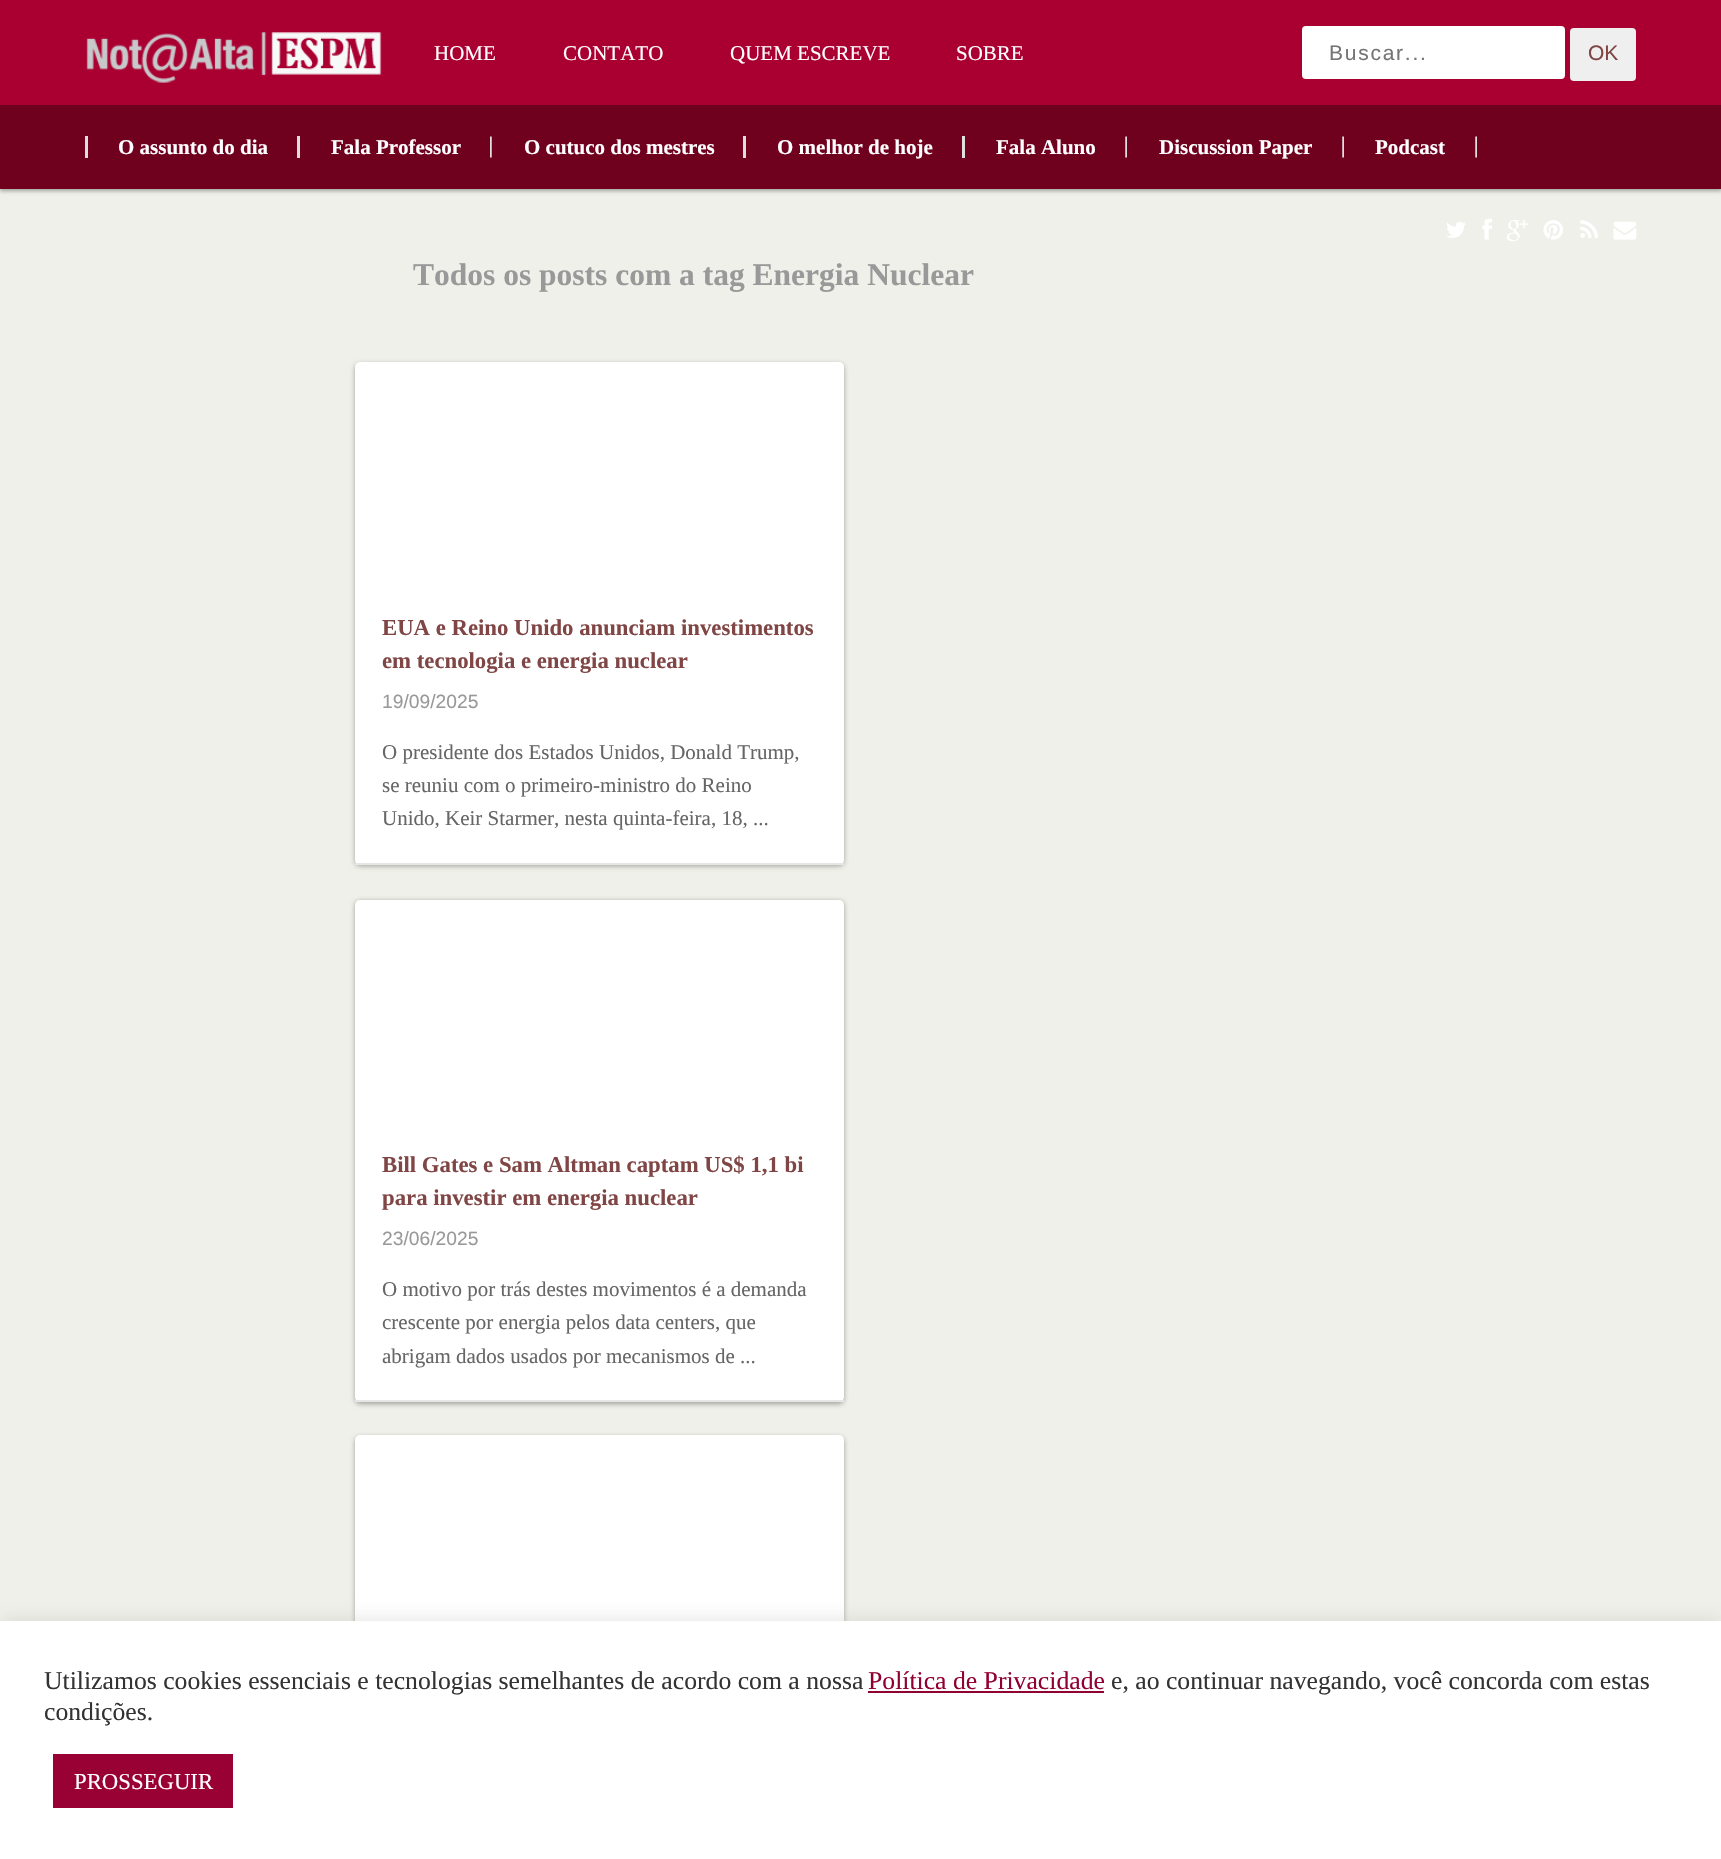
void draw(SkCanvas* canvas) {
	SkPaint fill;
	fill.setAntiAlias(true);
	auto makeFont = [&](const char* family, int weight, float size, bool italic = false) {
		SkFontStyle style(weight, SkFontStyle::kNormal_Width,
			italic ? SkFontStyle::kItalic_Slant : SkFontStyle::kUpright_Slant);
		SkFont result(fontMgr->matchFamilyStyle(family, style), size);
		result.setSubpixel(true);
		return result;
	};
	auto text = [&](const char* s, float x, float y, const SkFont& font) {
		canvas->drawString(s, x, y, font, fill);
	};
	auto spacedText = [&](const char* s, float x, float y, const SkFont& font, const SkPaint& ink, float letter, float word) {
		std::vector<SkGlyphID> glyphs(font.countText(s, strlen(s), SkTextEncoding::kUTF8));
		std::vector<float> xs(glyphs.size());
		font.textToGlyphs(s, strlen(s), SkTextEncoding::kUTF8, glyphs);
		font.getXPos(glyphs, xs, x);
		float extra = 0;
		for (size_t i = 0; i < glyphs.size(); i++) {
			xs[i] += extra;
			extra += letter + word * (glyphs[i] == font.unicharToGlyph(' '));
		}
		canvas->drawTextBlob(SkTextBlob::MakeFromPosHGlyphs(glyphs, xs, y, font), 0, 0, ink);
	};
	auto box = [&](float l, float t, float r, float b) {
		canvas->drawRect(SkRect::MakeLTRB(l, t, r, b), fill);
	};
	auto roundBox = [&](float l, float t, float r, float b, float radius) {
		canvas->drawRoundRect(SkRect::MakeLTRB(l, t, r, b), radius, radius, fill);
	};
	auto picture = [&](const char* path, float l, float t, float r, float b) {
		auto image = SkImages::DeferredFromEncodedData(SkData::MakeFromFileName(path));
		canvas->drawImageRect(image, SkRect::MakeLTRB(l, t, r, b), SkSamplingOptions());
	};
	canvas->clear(0xFFF0F0EA);
	fill.setColor(0x54000000);
	fill.setMaskFilter(SkMaskFilter::MakeBlur(kNormal_SkBlurStyle, 2));
	canvas->drawRect(SkRect::MakeLTRB(0, 107, 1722, 191), fill);
	fill.setMaskFilter(nullptr);
	fill.setColor(0xFFAA0031);
	box(0, 0, 1721, 105);
	picture("image0.png", 86, 32, 382, 83);
	fill.setColor(0xFFFFFFFF);
	roundBox(1302, 26, 1565, 79, 4);
	fill.setColor(0xFFEFEFEF);
	roundBox(1570, 28, 1636, 81, 4);
	fill.setColor(0xFF6F011F);
	box(0, 105, 1721, 189);
	fill.setColor(0xFFDFDFDF);
	box(85, 136, 88, 158);
	box(297, 136, 300, 158);
	picture("image1.png", 490, 136, 492, 158);
	box(743, 136, 746, 158);
	box(962, 136, 965, 158);
	picture("image2.png", 1125, 136, 1127, 158);
	picture("image2.png", 1342, 136, 1344, 158);
	picture("image2.png", 1475, 136, 1477, 158);
	picture("image3.png", 1446, 221, 1466, 238);
	picture("image4.png", 1482, 218, 1492, 240);
	picture("image5.png", 1506, 220, 1528, 242);
	picture("image6.png", 1543, 220, 1563, 240);
	picture("image7.png", 1580, 220, 1598, 238);
	picture("image8.png", 1613, 221, 1637, 240);
	fill.setColor(0x54000000);
	fill.setMaskFilter(SkMaskFilter::MakeBlur(kNormal_SkBlurStyle, 2.5f));
	canvas->drawRoundRect(SkRect::MakeLTRB(355, 364, 844, 866), 5, 5, fill);
	fill.setMaskFilter(nullptr);
	fill.setColor(0xFFFFFFFF);
	roundBox(355, 362, 844, 865, 5);
	fill.setColor(0xFFE6E6E6);
	box(355, 863, 844, 865);
	fill.setColor(0x54000000);
	fill.setMaskFilter(SkMaskFilter::MakeBlur(kNormal_SkBlurStyle, 2.5f));
	canvas->drawRoundRect(SkRect::MakeLTRB(355, 901, 844, 1404), 5, 5, fill);
	fill.setMaskFilter(nullptr);
	fill.setColor(0xFFFFFFFF);
	roundBox(355, 900, 844, 1402, 5);
	fill.setColor(0xFFE6E6E6);
	box(355, 1400, 844, 1402);
	fill.setColor(0x54000000);
	fill.setMaskFilter(SkMaskFilter::MakeBlur(kNormal_SkBlurStyle, 2.5f));
	canvas->drawRoundRect(SkRect::MakeLTRB(355, 1437, 844, 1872), 5, 5, fill);
	fill.setMaskFilter(nullptr);
	fill.setColor(0xFFFFFFFF);
	roundBox(355, 1435, 844, 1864, 5);
	fill.setColor(0x4DACABAB);
	fill.setMaskFilter(SkMaskFilter::MakeBlur(kNormal_SkBlurStyle, 9));
	canvas->drawRect(SkRect::MakeLTRB(0, 1619, 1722, 1859), fill);
	fill.setMaskFilter(nullptr);
	fill.setColor(0xFFFFFFFF);
	box(0, 1621, 1721, 1859);
	fill.setColor(0xFF900033);
	box(868, 1691, 1104, 1693);
	fill.setColor(0xFF990033);
	box(53, 1754, 233, 1808);
	auto font1 = makeFont("Liberation Serif", 400, 21);
	fill.setColor(0xFFFFFFFF);
	text("HOME", 434, 60, font1);
	text("CONTATO", 563, 60, font1);
	text("QUEM ESCREVE", 730, 60, font1);
	text("SOBRE", 956, 60, font1);
	auto font2 = makeFont("Liberation Sans", 400, 21);
	fill.setColor(0xFF757575);
	spacedText("Buscar...", 1329, 60, font2, fill, 1.75f, 0);
	fill.setColor(0xFF804645);
	text("OK", 1588, 60, font2);
	auto font3 = makeFont("Liberation Serif", 700, 21);
	fill.setColor(0xFFFFFFFF);
	text("O assunto do dia", 118, 154, font3);
	text("Fala Professor", 331, 154, font3);
	text("O cutuco dos mestres", 524, 154, font3);
	text("O melhor de hoje", 777, 154, font3);
	text("Fala Aluno", 996, 154, font3);
	text("Discussion Paper", 1159, 154, font3);
	text("Podcast", 1375, 154, font3);
	auto font4 = makeFont("Liberation Serif", 700, 31.5f);
	fill.setColor(0xFF999999);
	text("Todos os posts com a tag Energia Nuclear", 413, 285, font4);
	auto font5 = makeFont("Liberation Serif", 700, 22.75f);
	fill.setColor(0xFF804645);
	text("EUA e Reino Unido anunciam investimentos", 382, 635, font5);
	text("em tecnologia e energia nuclear", 382, 668, font5);
	auto font6 = makeFont("Liberation Sans", 400, 19.25f);
	fill.setColor(0xFF999999);
	text("19/09/2025", 382, 708, font6);
	fill.setColor(0xFF666666);
	text("O presidente dos Estados Unidos, Donald Trump,", 382, 759, font1);
	text("se reuniu com o primeiro-ministro do Reino", 382, 792, font1);
	text("Unido, Keir Starmer, nesta quinta-feira, 18, ...", 382, 825, font1);
	fill.setColor(0xFF804645);
	text("Bill Gates e Sam Altman captam US$ 1,1 bi", 382, 1172, font5);
	text("para investir em energia nuclear", 382, 1205, font5);
	fill.setColor(0xFF999999);
	text("23/06/2025", 382, 1245, font6);
	fill.setColor(0xFF666666);
	text("O motivo por trás destes movimentos é a demanda", 382, 1296, font1);
	text("crescente por energia pelos data centers, que", 382, 1329, font1);
	text("abrigam dados usados por mecanismos de ...", 382, 1363, font1);
	auto font7 = makeFont("Liberation Serif", 400, 25.7f);
	fill.setColor(0xFF333333);
	text("Utilizamos cookies essenciais e tecnologias semelhantes de acordo com a nossa", 44, 1689, font7);
	fill.setColor(0xFF900033);
	text("Política de Privacidade", 868, 1689, font7);
	fill.setColor(0xFF333333);
	text("e, ao continuar navegando, você concorda com estas", 1111, 1689, font7);
	text("condições.", 44, 1720, font7);
	auto font8 = makeFont("Liberation Serif", 400, 22.75f);
	fill.setColor(0xFFFFFFFF);
	text("PROSSEGUIR", 74, 1789, font8);
}
